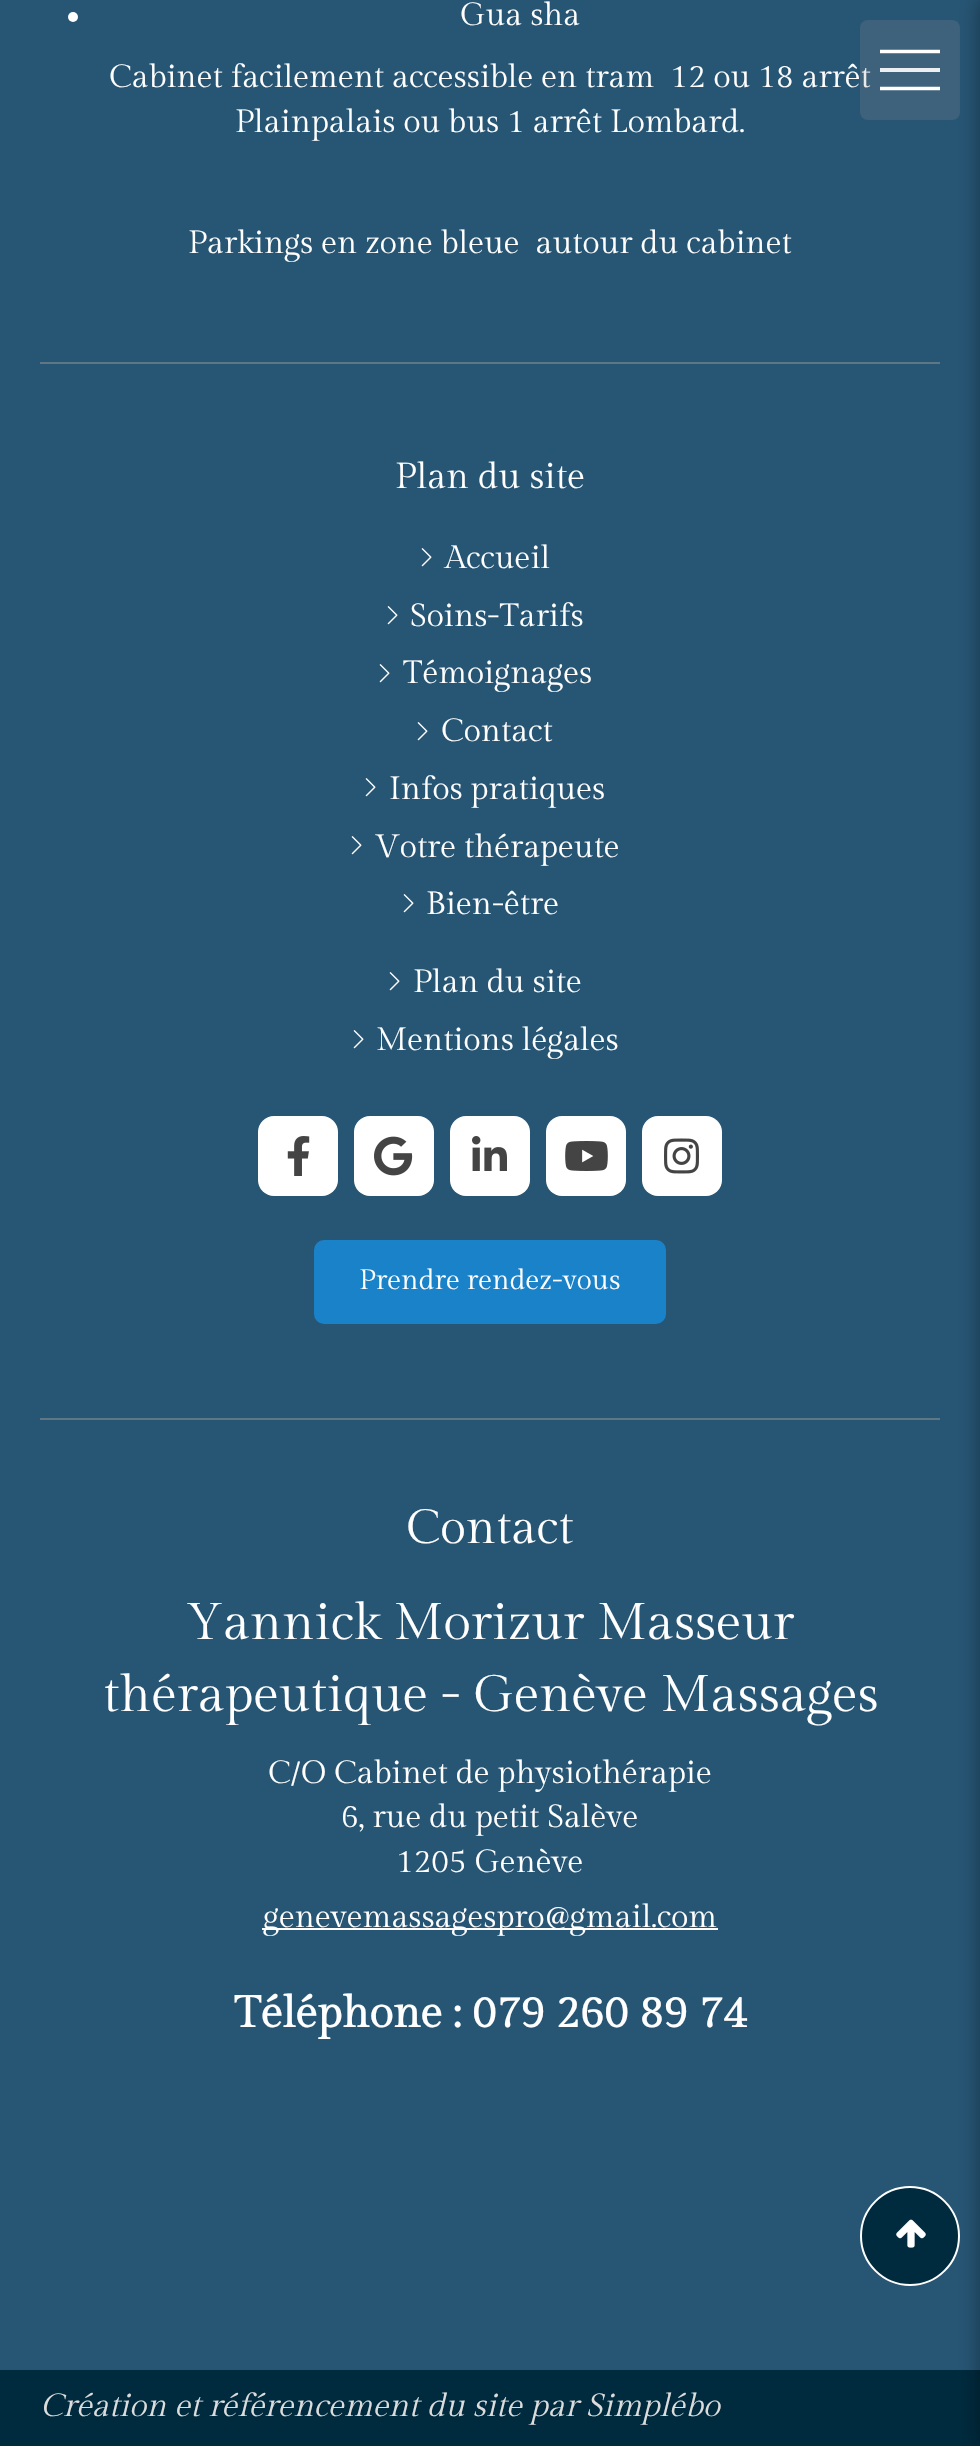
void draw(SkCanvas* canvas) {
	SkPaint fill;
	fill.setAntiAlias(true);
	auto makeFont = [&](const char* family, int weight, float size, bool italic = false) {
		SkFontStyle style(weight, SkFontStyle::kNormal_Width,
			italic ? SkFontStyle::kItalic_Slant : SkFontStyle::kUpright_Slant);
		SkFont result(fontMgr->matchFamilyStyle(family, style), size);
		result.setSubpixel(true);
		return result;
	};
	auto text = [&](const char* s, float x, float y, const SkFont& font) {
		canvas->drawString(s, x, y, font, fill);
	};
	auto box = [&](float l, float t, float r, float b) {
		canvas->drawRect(SkRect::MakeLTRB(l, t, r, b), fill);
	};
	auto roundBox = [&](float l, float t, float r, float b, float radius) {
		canvas->drawRoundRect(SkRect::MakeLTRB(l, t, r, b), radius, radius, fill);
	};
	auto picture = [&](const char* path, float l, float t, float r, float b) {
		auto image = SkImages::DeferredFromEncodedData(SkData::MakeFromFileName(path));
		canvas->drawImageRect(image, SkRect::MakeLTRB(l, t, r, b), SkSamplingOptions());
	};
	canvas->clear(0xFF002A3D);
	fill.setColor(0xFF275574);
	box(0, 0, 980, 2370);
	fill.setColor(0xFFFFFFFF);
	canvas->drawCircle(73, 17, 5, fill);
	fill.setColor(0xFF5F7685);
	box(40, 362, 940, 364);
	picture("image0.png", 421, 548, 432, 567);
	picture("image0.png", 387, 606, 398, 625);
	picture("image0.png", 379, 664, 390, 683);
	picture("image0.png", 417, 722, 428, 741);
	picture("image0.png", 365, 778, 376, 797);
	picture("image0.png", 351, 836, 362, 855);
	picture("image0.png", 403, 894, 414, 913);
	picture("image0.png", 389, 972, 400, 991);
	picture("image0.png", 353, 1030, 364, 1049);
	fill.setColor(0xFFFFFFFF);
	roundBox(258, 1116, 338, 1196, 16);
	picture("image1.png", 287, 1136, 310, 1176);
	roundBox(354, 1116, 434, 1196, 16);
	picture("image2.png", 374, 1136, 413, 1176);
	roundBox(450, 1116, 530, 1196, 16);
	picture("image3.png", 472, 1136, 507, 1171);
	roundBox(546, 1116, 626, 1196, 16);
	picture("image4.png", 565, 1141, 608, 1171);
	roundBox(642, 1116, 722, 1196, 16);
	picture("image5.png", 664, 1138, 699, 1174);
	fill.setColor(0xFF1A82C8);
	canvas->drawRoundRect(SkRect::MakeLTRB(317, 1243, 663, 1321), 7, 7, fill);
	fill.setStyle(SkPaint::kStroke_Style);
	fill.setStrokeWidth(6);
	canvas->drawRoundRect(SkRect::MakeLTRB(317, 1243, 663, 1321), 7, 7, fill);
	fill.setStyle(SkPaint::kFill_Style);
	fill.setColor(0xFF5F7685);
	box(40, 1418, 940, 1420);
	fill.setColor(0xFFFFFFFF);
	box(262, 1928, 718, 1930);
	fill.setColor(0xFF002A3D);
	canvas->drawCircle(910, 2236, 49, fill);
	fill.setStyle(SkPaint::kStroke_Style);
	fill.setStrokeWidth(2);
	fill.setColor(0xFFFFFFFF);
	canvas->drawCircle(910, 2236, 49, fill);
	picture("image6.png", 896, 2219, 926, 2248);
	auto font1 = makeFont("Gilda Display", 400, 32);
	fill.setStyle(SkPaint::kFill_Style);
	text("Gua sha", 460, 25, font1);
	text("Cabinet facilement accessible en tram  12 ou 18 arrêt", 109, 87, font1);
	text("Plainpalais ou bus 1 arrêt Lombard.", 235, 132, font1);
	text("Parkings en zone bleue  autour du cabinet", 188, 253, font1);
	auto font2 = makeFont("Gilda Display", 400, 36);
	text("Plan du site", 395, 488, font2);
	text("Accueil", 445, 568, font1);
	text("Soins-Tarifs", 410, 626, font1);
	text("Témoignages", 403, 683, font1);
	text("Contact", 441, 741, font1);
	text("Infos pratiques", 389, 799, font1);
	text("Votre thérapeute", 375, 857, font1);
	text("Bien-être", 426, 914, font1);
	text("Plan du site", 413, 992, font1);
	text("Mentions légales", 376, 1050, font1);
	auto font3 = makeFont("Gilda Display", 400, 28);
	text("Prendre rendez-vous", 359, 1289, font3);
	auto font4 = makeFont("Gilda Display", 400, 48);
	text("Contact", 406, 1543, font4);
	auto font5 = makeFont("Gilda Display", 400, 51.25f);
	text("Yannick Morizur Masseur", 186, 1639, font5);
	text("thérapeutique - Genève Massages", 103, 1711, font5);
	text("C/O Cabinet de physiothérapie", 268, 1783, font1);
	text("6, rue du petit Salève", 341, 1827, font1);
	text("1205 Genève", 396, 1872, font1);
	text("genevemassagespro@gmail.com", 263, 1927, font1);
	auto font6 = makeFont("Gilda Display", 700, 44);
	text("Téléphone : 079 260 89 74", 234, 2027, font6);
	fill.setColor(0x33969696);
	roundBox(860, 20, 960, 120, 8);
	fill.setColor(0xFFECEFF2);
	box(880, 68, 940, 72);
	fill.setStyle(SkPaint::kStroke_Style);
	fill.setStrokeWidth(3.6f);
	fill.setColor(0xFFFFFFFF);
	canvas->drawPath(SkPathBuilder().moveTo(880, 51.5f).lineTo(940, 51.5f).moveTo(880, 88.5f).lineTo(940, 88.5f).detach(), fill);
	auto font7 = makeFont("Gilda Display", 400, 32, true);
	fill.setStyle(SkPaint::kFill_Style);
	fill.setColor(0xFFDCDCDC);
	text("Création et référencement du site par Simplébo", 40, 2416, font7);
	fill.setColor(0x66000000);
	fill.setMaskFilter(SkMaskFilter::MakeBlur(kNormal_SkBlurStyle, 10));
	canvas->drawRect(SkRect::MakeLTRB(980, 0, 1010, 2446), fill);
	fill.setMaskFilter(nullptr);
}
